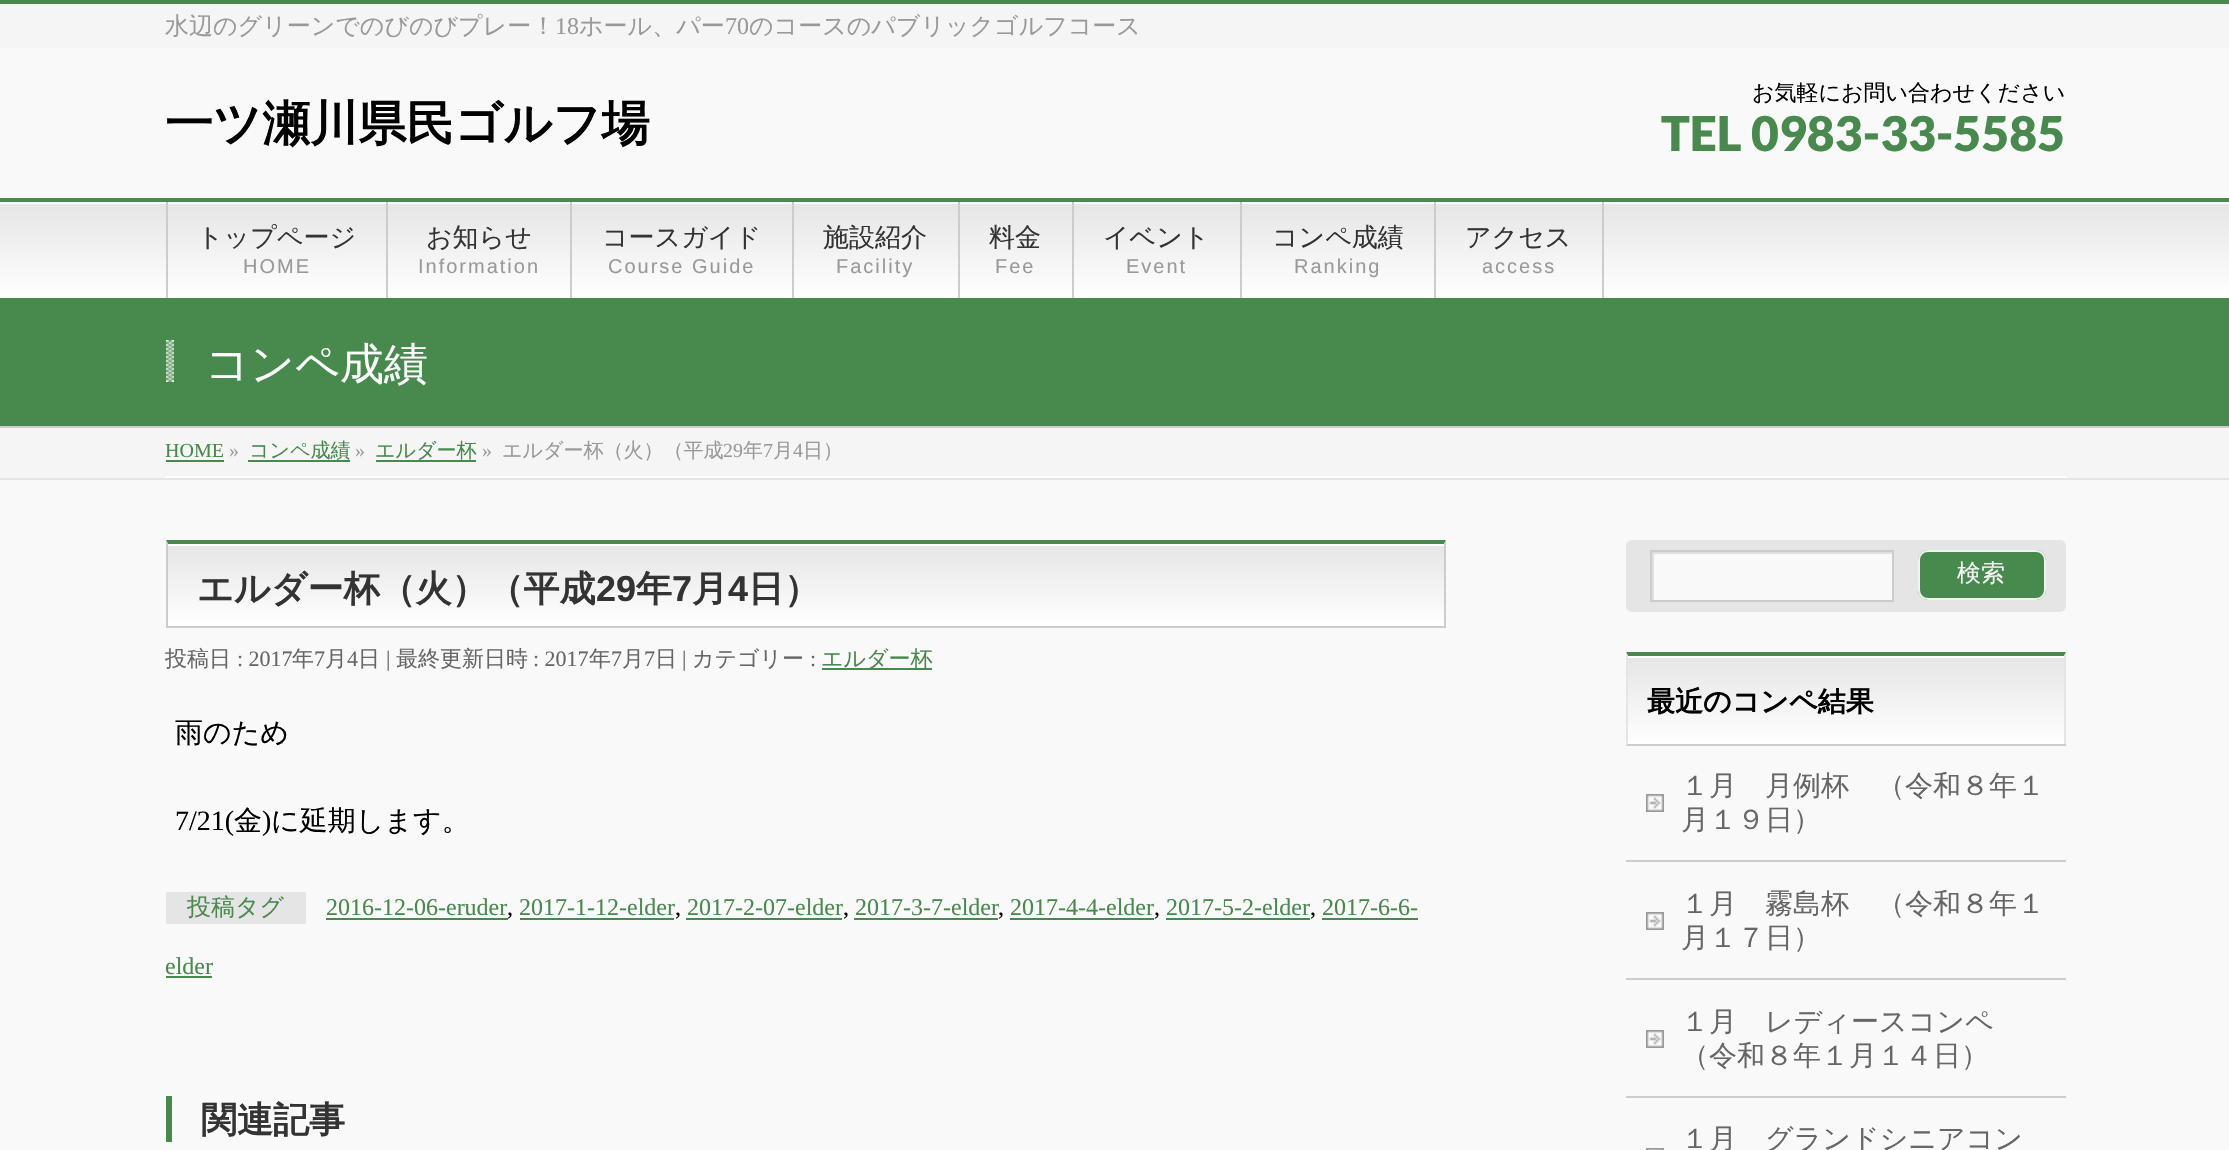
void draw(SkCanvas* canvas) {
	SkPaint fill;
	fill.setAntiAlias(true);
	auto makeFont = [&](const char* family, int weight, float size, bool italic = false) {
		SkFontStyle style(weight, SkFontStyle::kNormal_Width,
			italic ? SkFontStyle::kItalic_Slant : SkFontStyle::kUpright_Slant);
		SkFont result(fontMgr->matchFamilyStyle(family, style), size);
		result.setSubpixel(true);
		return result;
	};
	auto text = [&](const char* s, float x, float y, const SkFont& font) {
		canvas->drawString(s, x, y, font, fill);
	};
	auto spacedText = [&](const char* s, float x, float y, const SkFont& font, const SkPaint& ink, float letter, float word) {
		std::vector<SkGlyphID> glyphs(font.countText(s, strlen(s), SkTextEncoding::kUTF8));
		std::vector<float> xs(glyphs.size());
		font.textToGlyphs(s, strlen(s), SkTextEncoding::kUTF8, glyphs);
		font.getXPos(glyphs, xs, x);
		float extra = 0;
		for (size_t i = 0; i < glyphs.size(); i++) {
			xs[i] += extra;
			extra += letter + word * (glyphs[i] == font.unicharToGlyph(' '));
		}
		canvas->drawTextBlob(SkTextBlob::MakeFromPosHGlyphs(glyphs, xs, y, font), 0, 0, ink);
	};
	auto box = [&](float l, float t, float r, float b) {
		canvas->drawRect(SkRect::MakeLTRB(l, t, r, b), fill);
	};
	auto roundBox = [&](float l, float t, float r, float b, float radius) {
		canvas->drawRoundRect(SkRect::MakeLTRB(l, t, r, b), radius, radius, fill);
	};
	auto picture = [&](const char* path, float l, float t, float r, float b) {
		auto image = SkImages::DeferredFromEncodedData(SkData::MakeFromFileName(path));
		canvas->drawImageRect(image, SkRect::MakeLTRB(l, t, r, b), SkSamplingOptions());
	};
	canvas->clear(0xFFF9F9F9);
	fill.setColor(0xFFF5F5F5);
	box(0, 4, 2229, 48);
	fill.setColor(0xFF48894E);
	box(0, 0, 2229, 4);
	{
		const SkColor colors[] = {0xFFE5E5E5, 0xFFFFFFFF};
		const float stops[] = {0, 1};
		const SkPoint ends[] = {{1115, 202}, {1115, 298}};
		fill.setShader(SkGradientShader::MakeLinear(ends, colors, stops, 2, SkTileMode::kClamp));
		fill.setAlpha(255);
	}
	box(0, 204, 2229, 298);
	fill.setShader(nullptr);
	fill.setColor(0xFFFFFFFF);
	box(0, 202, 2229, 204);
	fill.setColor(0xFF48894E);
	box(0, 198, 2229, 202);
	fill.setColor(0xFFCCCCCC);
	box(166, 202, 168, 298);
	box(386, 202, 388, 298);
	box(570, 202, 572, 298);
	box(792, 202, 794, 298);
	box(958, 202, 960, 298);
	box(1072, 202, 1074, 298);
	box(1240, 202, 1242, 298);
	box(1434, 202, 1436, 298);
	box(1602, 202, 1604, 298);
	fill.setColor(0xFF48894E);
	box(0, 298, 2229, 426);
	fill.setColor(0xFFCCCCCC);
	box(0, 426, 2229, 428);
	picture("image0.png", 166, 340, 174, 382);
	fill.setColor(0xFFF5F5F5);
	box(0, 428, 2229, 478);
	fill.setColor(0xFFE5E5E5);
	box(0, 478, 2229, 480);
	fill.setColor(0xFFFFFFFF);
	box(166, 476, 2066, 478);
	fill.setColor(0xFF48894E);
	box(166, 460, 224, 462);
	box(248, 460, 350, 462);
	box(376, 460, 476, 462);
	{
		const SkColor colors[] = {0xFFE5E5E5, 0xFFFFFFFF};
		const float stops[] = {0, 1};
		const SkPoint ends[] = {{168, 544}, {168, 626}};
		fill.setShader(SkGradientShader::MakeLinear(ends, colors, stops, 2, SkTileMode::kClamp));
		fill.setAlpha(255);
	}
	box(168, 546, 1444, 626);
	fill.setShader(nullptr);
	fill.setColor(0xFFFFFFFF);
	box(168, 544, 1444, 546);
	fill.setColor(0xFF48894E);
	canvas->drawPath(SkPathBuilder().moveTo(166, 540).lineTo(1446, 540).lineTo(1444, 544).lineTo(168, 544).close().detach(), fill);
	fill.setColor(0xFFCCCCCC);
	canvas->drawPath(SkPathBuilder().moveTo(1446, 540).lineTo(1446, 628).lineTo(1444, 626).lineTo(1444, 544).close().detach(), fill);
	box(166, 626, 1446, 628);
	canvas->drawPath(SkPathBuilder().moveTo(166, 628).lineTo(166, 540).lineTo(168, 544).lineTo(168, 626).close().detach(), fill);
	fill.setColor(0xFF48894E);
	box(822, 668, 932, 670);
	fill.setColor(0xFFE5E5E5);
	box(166, 892, 306, 924);
	fill.setColor(0xFF48894E);
	box(326, 918, 508, 920);
	box(520, 918, 674, 920);
	box(686, 918, 842, 920);
	box(854, 918, 998, 920);
	box(1010, 918, 1154, 920);
	box(1166, 918, 1310, 920);
	box(1322, 918, 1418, 920);
	box(166, 976, 212, 978);
	box(166, 1096, 172, 1142);
	fill.setColor(0xFFE5E5E5);
	roundBox(1626, 540, 2066, 612, 6);
	fill.setColor(0xFFF9F9F9);
	box(1654, 554, 1892, 600);
	canvas->save();
	canvas->clipRect(SkRect::MakeLTRB(1652, 552, 1892, 600));
	fill.setColor(0xFFE0E0E0);
	canvas->drawPath(SkPathBuilder(SkPathFillType::kEvenOdd).moveTo(1632, 540).cubicTo(1629, 540, 1626, 543, 1626, 546).lineTo(1626, 606).cubicTo(1626, 609, 1629, 612, 1632, 612).lineTo(2060, 612).cubicTo(2063, 612, 2066, 609, 2066, 606).lineTo(2066, 546).cubicTo(2066, 543, 2063, 540, 2060, 540).close().moveTo(1654, 554).lineTo(1654, 602).lineTo(1894, 602).lineTo(1894, 554).close().detach(), fill);
	canvas->restore();
	fill.setStyle(SkPaint::kStroke_Style);
	fill.setStrokeWidth(2);
	fill.setColor(0xFFCCCCCC);
	canvas->drawRect(SkRect::MakeLTRB(1651, 551, 1893, 601), fill);
	fill.setStyle(SkPaint::kFill_Style);
	fill.setColor(0xFF48894E);
	roundBox(1918, 550, 2046, 600, 10);
	fill.setStyle(SkPaint::kStroke_Style);
	fill.setColor(0xE6FFFFFF);
	canvas->drawRoundRect(SkRect::MakeLTRB(1919, 551, 2045, 599), 9, 9, fill);
	fill.setStyle(SkPaint::kFill_Style);
	{
		const SkColor colors[] = {0xFFE5E5E5, 0xFFFFFFFF};
		const float stops[] = {0, 1};
		const SkPoint ends[] = {{1628, 656}, {1628, 744}};
		fill.setShader(SkGradientShader::MakeLinear(ends, colors, stops, 2, SkTileMode::kClamp));
		fill.setAlpha(255);
	}
	box(1628, 658, 2064, 744);
	fill.setShader(nullptr);
	fill.setColor(0xFFFFFFFF);
	box(1628, 656, 2064, 658);
	fill.setColor(0xFF48894E);
	canvas->drawPath(SkPathBuilder().moveTo(1626, 652).lineTo(2066, 652).lineTo(2064, 656).lineTo(1628, 656).close().detach(), fill);
	fill.setColor(0xFFE5E5E5);
	canvas->drawPath(SkPathBuilder().moveTo(2066, 652).lineTo(2066, 746).lineTo(2064, 744).lineTo(2064, 656).close().detach(), fill);
	fill.setColor(0xFFCCCCCC);
	box(1626, 744, 2066, 746);
	fill.setColor(0xFFE5E5E5);
	canvas->drawPath(SkPathBuilder().moveTo(1626, 746).lineTo(1626, 652).lineTo(1628, 656).lineTo(1628, 744).close().detach(), fill);
	fill.setColor(0xFFCCCCCC);
	box(1626, 860, 2066, 862);
	picture("image1.png", 1646, 794, 1664, 812);
	box(1626, 978, 2066, 980);
	picture("image1.png", 1646, 912, 1664, 930);
	box(1626, 1096, 2066, 1098);
	picture("image1.png", 1646, 1030, 1664, 1048);
	picture("image2.png", 1646, 1148, 1664, 1150);
	auto font1 = makeFont("WenQuanYi Zen Hei", 500, 24);
	fill.setColor(0xFF999999);
	text("水辺のグリーンでのびのびプレー！", 165, 34, font1);
	auto font2 = makeFont("Liberation Serif", 400, 24);
	text("18", 555, 34, font2);
	text("ホール、パー", 579, 34, font1);
	text("70", 725, 34, font2);
	text("のコースのパブリックゴルフコース", 749, 34, font1);
	auto font3 = makeFont("WenQuanYi Zen Hei", 700, 48);
	fill.setColor(0xFF000000);
	text("一ツ瀬川県民ゴルフ場", 165, 140, font3);
	auto font4 = makeFont("WenQuanYi Zen Hei", 500, 22);
	text("お気軽にお問い合わせください", 1752, 100, font4);
	auto font5 = makeFont("Lato", 900, 48);
	fill.setColor(0xFF48894E);
	text("TEL 0983-33-5585", 1661, 151, font5);
	auto font6 = makeFont("WenQuanYi Zen Hei", 500, 26);
	fill.setColor(0xFF333333);
	text("トップページ", 197, 246, font6);
	auto font7 = makeFont("Liberation Sans", 400, 20);
	fill.setColor(0xFF999999);
	spacedText("HOME", 243, 273, font7, fill, 2, 0);
	fill.setColor(0xFF333333);
	text("お知らせ", 426, 246, font6);
	fill.setColor(0xFF999999);
	spacedText("Information", 418, 273, font7, fill, 2, 0);
	fill.setColor(0xFF333333);
	text("コースガイド", 602, 246, font6);
	fill.setColor(0xFF999999);
	spacedText("Course Guide", 608, 273, font7, fill, 2, 0);
	fill.setColor(0xFF333333);
	text("施設紹介", 823, 246, font6);
	fill.setColor(0xFF999999);
	spacedText("Facility", 836, 273, font7, fill, 2, 0);
	fill.setColor(0xFF333333);
	text("料金", 989, 246, font6);
	fill.setColor(0xFF999999);
	spacedText("Fee", 995, 273, font7, fill, 2, 0);
	fill.setColor(0xFF333333);
	text("イベント", 1103, 246, font6);
	fill.setColor(0xFF999999);
	spacedText("Event", 1126, 273, font7, fill, 2, 0);
	fill.setColor(0xFF333333);
	text("コンペ成績", 1272, 246, font6);
	fill.setColor(0xFF999999);
	spacedText("Ranking", 1294, 273, font7, fill, 2, 0);
	fill.setColor(0xFF333333);
	text("アクセス", 1465, 246, font6);
	fill.setColor(0xFF999999);
	spacedText("access", 1482, 273, font7, fill, 2, 0);
	auto font8 = makeFont("WenQuanYi Zen Hei", 500, 44);
	fill.setColor(0xFFFFFFFF);
	text("コンペ成績", 205, 379, font8);
	auto font9 = makeFont("Liberation Serif", 400, 20);
	fill.setColor(0xFF48894E);
	text("HOME", 165, 457, font9);
	fill.setColor(0xFF999999);
	text("»", 229, 457, font9);
	auto font10 = makeFont("WenQuanYi Zen Hei", 500, 20);
	fill.setColor(0xFF48894E);
	text("コンペ成績", 249, 457, font10);
	fill.setColor(0xFF999999);
	text("»", 355, 457, font9);
	fill.setColor(0xFF48894E);
	text("エルダー杯", 375, 457, font10);
	fill.setColor(0xFF999999);
	text("»", 482, 457, font9);
	text("エルダー杯（火）（平成", 502, 457, font10);
	text("29", 723, 457, font9);
	text("年", 743, 457, font10);
	text("7", 763, 457, font9);
	text("月", 773, 457, font10);
	text("4", 793, 457, font9);
	text("日）", 803, 457, font10);
	auto font11 = makeFont("WenQuanYi Zen Hei", 700, 36);
	fill.setColor(0xFF333333);
	text("エルダー杯（火）（平成", 197, 601, font11);
	auto font12 = makeFont("Liberation Sans", 700, 36);
	text("29", 596, 601, font12);
	text("年", 636, 601, font11);
	text("7", 672, 601, font12);
	text("月", 692, 601, font11);
	text("4", 728, 601, font12);
	text("日）", 748, 601, font11);
	fill.setColor(0xFF666666);
	text("投稿日", 165, 666, font4);
	auto font13 = makeFont("Liberation Serif", 400, 22);
	text(": 2017", 237, 666, font13);
	text("年", 292, 666, font4);
	text("7", 314, 666, font13);
	text("月", 325, 666, font4);
	text("4", 347, 666, font13);
	text("日", 358, 666, font4);
	text("|", 386, 666, font13);
	text("最終更新日時", 396, 666, font4);
	text(": 2017", 533, 666, font13);
	text("年", 589, 666, font4);
	text("7", 611, 666, font13);
	text("月", 622, 666, font4);
	text("7", 644, 666, font13);
	text("日", 655, 666, font4);
	text("|", 682, 666, font13);
	text("カテゴリー", 692, 666, font4);
	text(":", 810, 666, font13);
	fill.setColor(0xFF48894E);
	text("エルダー杯", 821, 666, font4);
	auto font14 = makeFont("WenQuanYi Zen Hei", 500, 28);
	fill.setColor(0xFF000000);
	text("雨のため", 175, 742, font14);
	auto font15 = makeFont("Liberation Serif", 400, 28);
	text("7/21(", 175, 830, font15);
	text("金", 234, 830, font14);
	text(")", 262, 830, font15);
	text("に延期します。", 271, 830, font14);
	fill.setColor(0xFF48894E);
	text("投稿タグ", 187, 915, font1);
	text("2016-12-06-eruder", 326, 915, font2);
	fill.setColor(0xFF000000);
	text(",", 507, 915, font2);
	fill.setColor(0xFF48894E);
	text("2017-1-12-elder", 519, 915, font2);
	fill.setColor(0xFF000000);
	text(",", 675, 915, font2);
	fill.setColor(0xFF48894E);
	text("2017-2-07-elder", 687, 915, font2);
	fill.setColor(0xFF000000);
	text(",", 843, 915, font2);
	fill.setColor(0xFF48894E);
	text("2017-3-7-elder", 855, 915, font2);
	fill.setColor(0xFF000000);
	text(",", 998, 915, font2);
	fill.setColor(0xFF48894E);
	text("2017-4-4-elder", 1010, 915, font2);
	fill.setColor(0xFF000000);
	text(",", 1154, 915, font2);
	fill.setColor(0xFF48894E);
	text("2017-5-2-elder", 1166, 915, font2);
	fill.setColor(0xFF000000);
	text(",", 1310, 915, font2);
	fill.setColor(0xFF48894E);
	text("2017-6-6-", 1322, 915, font2);
	text("elder", 165, 974, font2);
	fill.setColor(0xFF333333);
	text("関連記事", 201, 1132, font11);
	fill.setColor(0xFFF5F5F5);
	text("検索", 1957, 581, font1);
	auto font16 = makeFont("WenQuanYi Zen Hei", 700, 28);
	fill.setColor(0xFF000000);
	text("最近のコンペ結果", 1647, 711, font16);
	fill.setColor(0xFF666666);
	text("１月　月例杯　（令和８年１", 1681, 795, font14);
	text("月１９日）", 1681, 829, font14);
	text("１月　霧島杯　（令和８年１", 1681, 913, font14);
	text("月１７日）", 1681, 947, font14);
	text("１月　レディースコンペ", 1681, 1031, font14);
	text("（令和８年１月１４日）", 1681, 1065, font14);
	text("１月　グランドシニアコン", 1681, 1148, font14);
}
